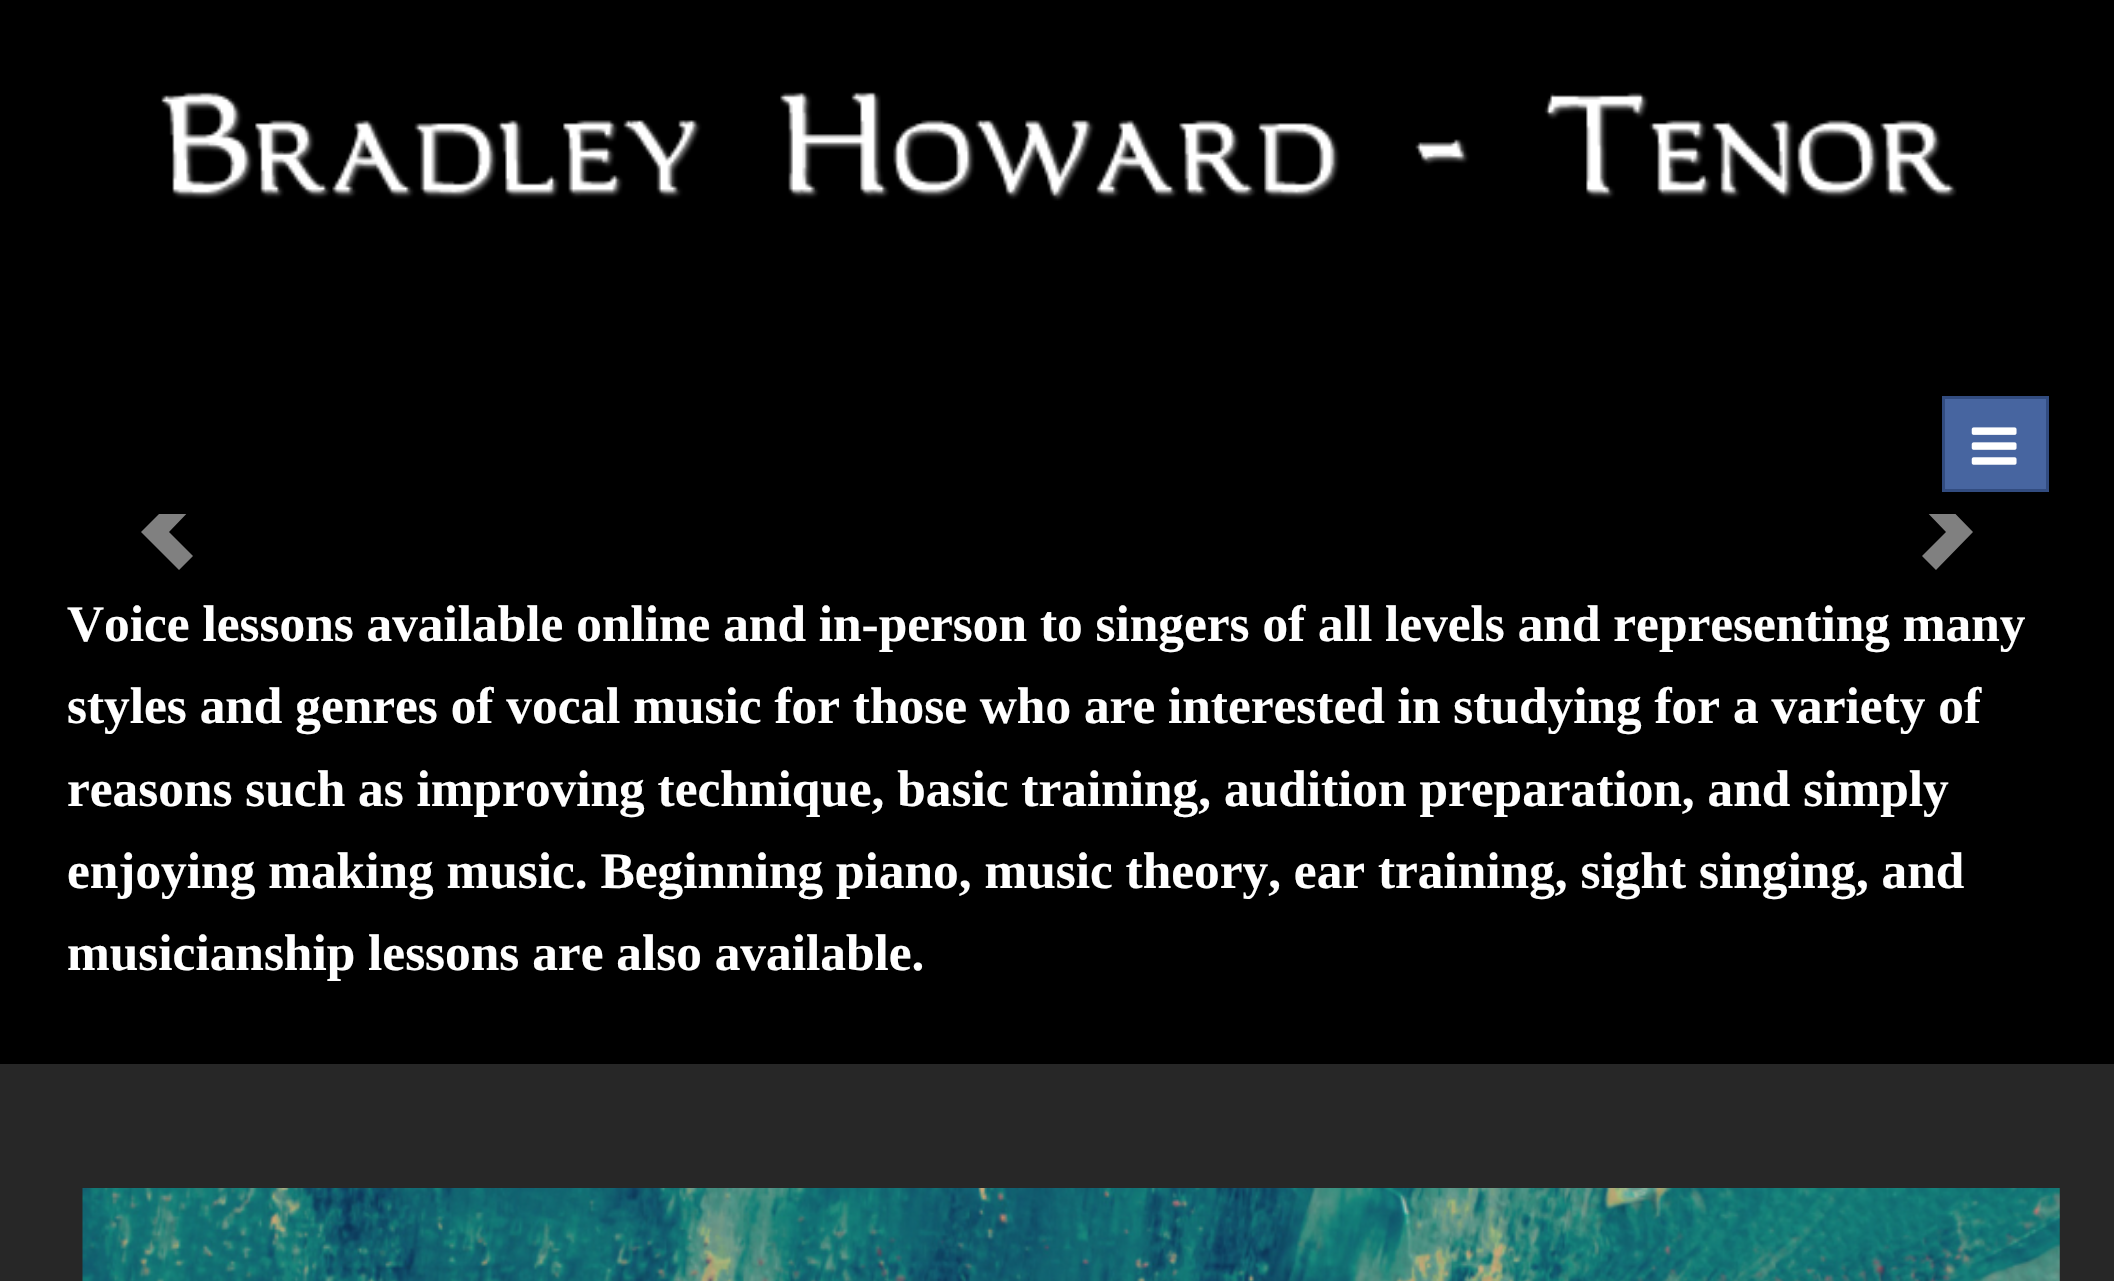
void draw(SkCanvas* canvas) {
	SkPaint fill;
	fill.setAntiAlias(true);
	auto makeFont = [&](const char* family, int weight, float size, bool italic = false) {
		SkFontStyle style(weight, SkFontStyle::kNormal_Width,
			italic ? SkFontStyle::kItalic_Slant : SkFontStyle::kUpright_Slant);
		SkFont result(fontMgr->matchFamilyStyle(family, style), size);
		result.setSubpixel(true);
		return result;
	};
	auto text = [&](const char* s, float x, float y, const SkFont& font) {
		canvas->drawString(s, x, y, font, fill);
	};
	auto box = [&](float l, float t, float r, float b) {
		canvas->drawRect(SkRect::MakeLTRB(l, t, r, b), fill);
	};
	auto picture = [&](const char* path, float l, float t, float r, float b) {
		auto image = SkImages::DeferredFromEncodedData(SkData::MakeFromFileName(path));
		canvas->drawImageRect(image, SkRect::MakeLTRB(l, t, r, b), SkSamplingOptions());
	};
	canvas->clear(0xFF000000);
	fill.setColor(0xFF808080);
	canvas->drawPath(SkPathBuilder().moveTo(193, 507).lineTo(169, 532).lineTo(193, 556).lineTo(179, 570).lineTo(141, 532).lineTo(179, 494).close().detach(), fill);
	canvas->drawPath(SkPathBuilder().moveTo(1973, 532).lineTo(1936, 570).lineTo(1922, 556).lineTo(1946, 532).lineTo(1922, 507).lineTo(1936, 494).close().detach(), fill);
	fill.setColor(0xFF000000);
	box(159, 494, 1956, 514);
	picture("image0.png", 161, 92, 1957, 201);
	fill.setColor(0xFF4765A0);
	canvas->drawRect(SkRect::MakeLTRB(1943.5f, 397.5f, 2047.5f, 490.5f), fill);
	fill.setStyle(SkPaint::kStroke_Style);
	fill.setStrokeWidth(3);
	fill.setColor(0xFF324C80);
	canvas->drawRect(SkRect::MakeLTRB(1943.5f, 397.5f, 2047.5f, 490.5f), fill);
	picture("image1.png", 1971, 427, 2017, 465);
	fill.setStyle(SkPaint::kFill_Style);
	fill.setColor(0xFF272727);
	box(0, 1064, 2114, 1281);
	picture("image2.png", 82, 1188, 2060, 1281);
	auto font1 = makeFont("Liberation Serif", 700, 51.35f);
	fill.setColor(0xFFFFFFFF);
	text("Voice lessons available online and in-person to singers of all levels and representing many", 67, 641, font1);
	text("styles and genres of vocal music for those who are interested in studying for a variety of", 67, 723, font1);
	text("reasons such as improving technique, basic training, audition preparation, and simply", 67, 806, font1);
	text("enjoying making music. Beginning piano, music theory, ear training, sight singing, and", 67, 888, font1);
	text("musicianship lessons are also available.", 67, 970, font1);
}
